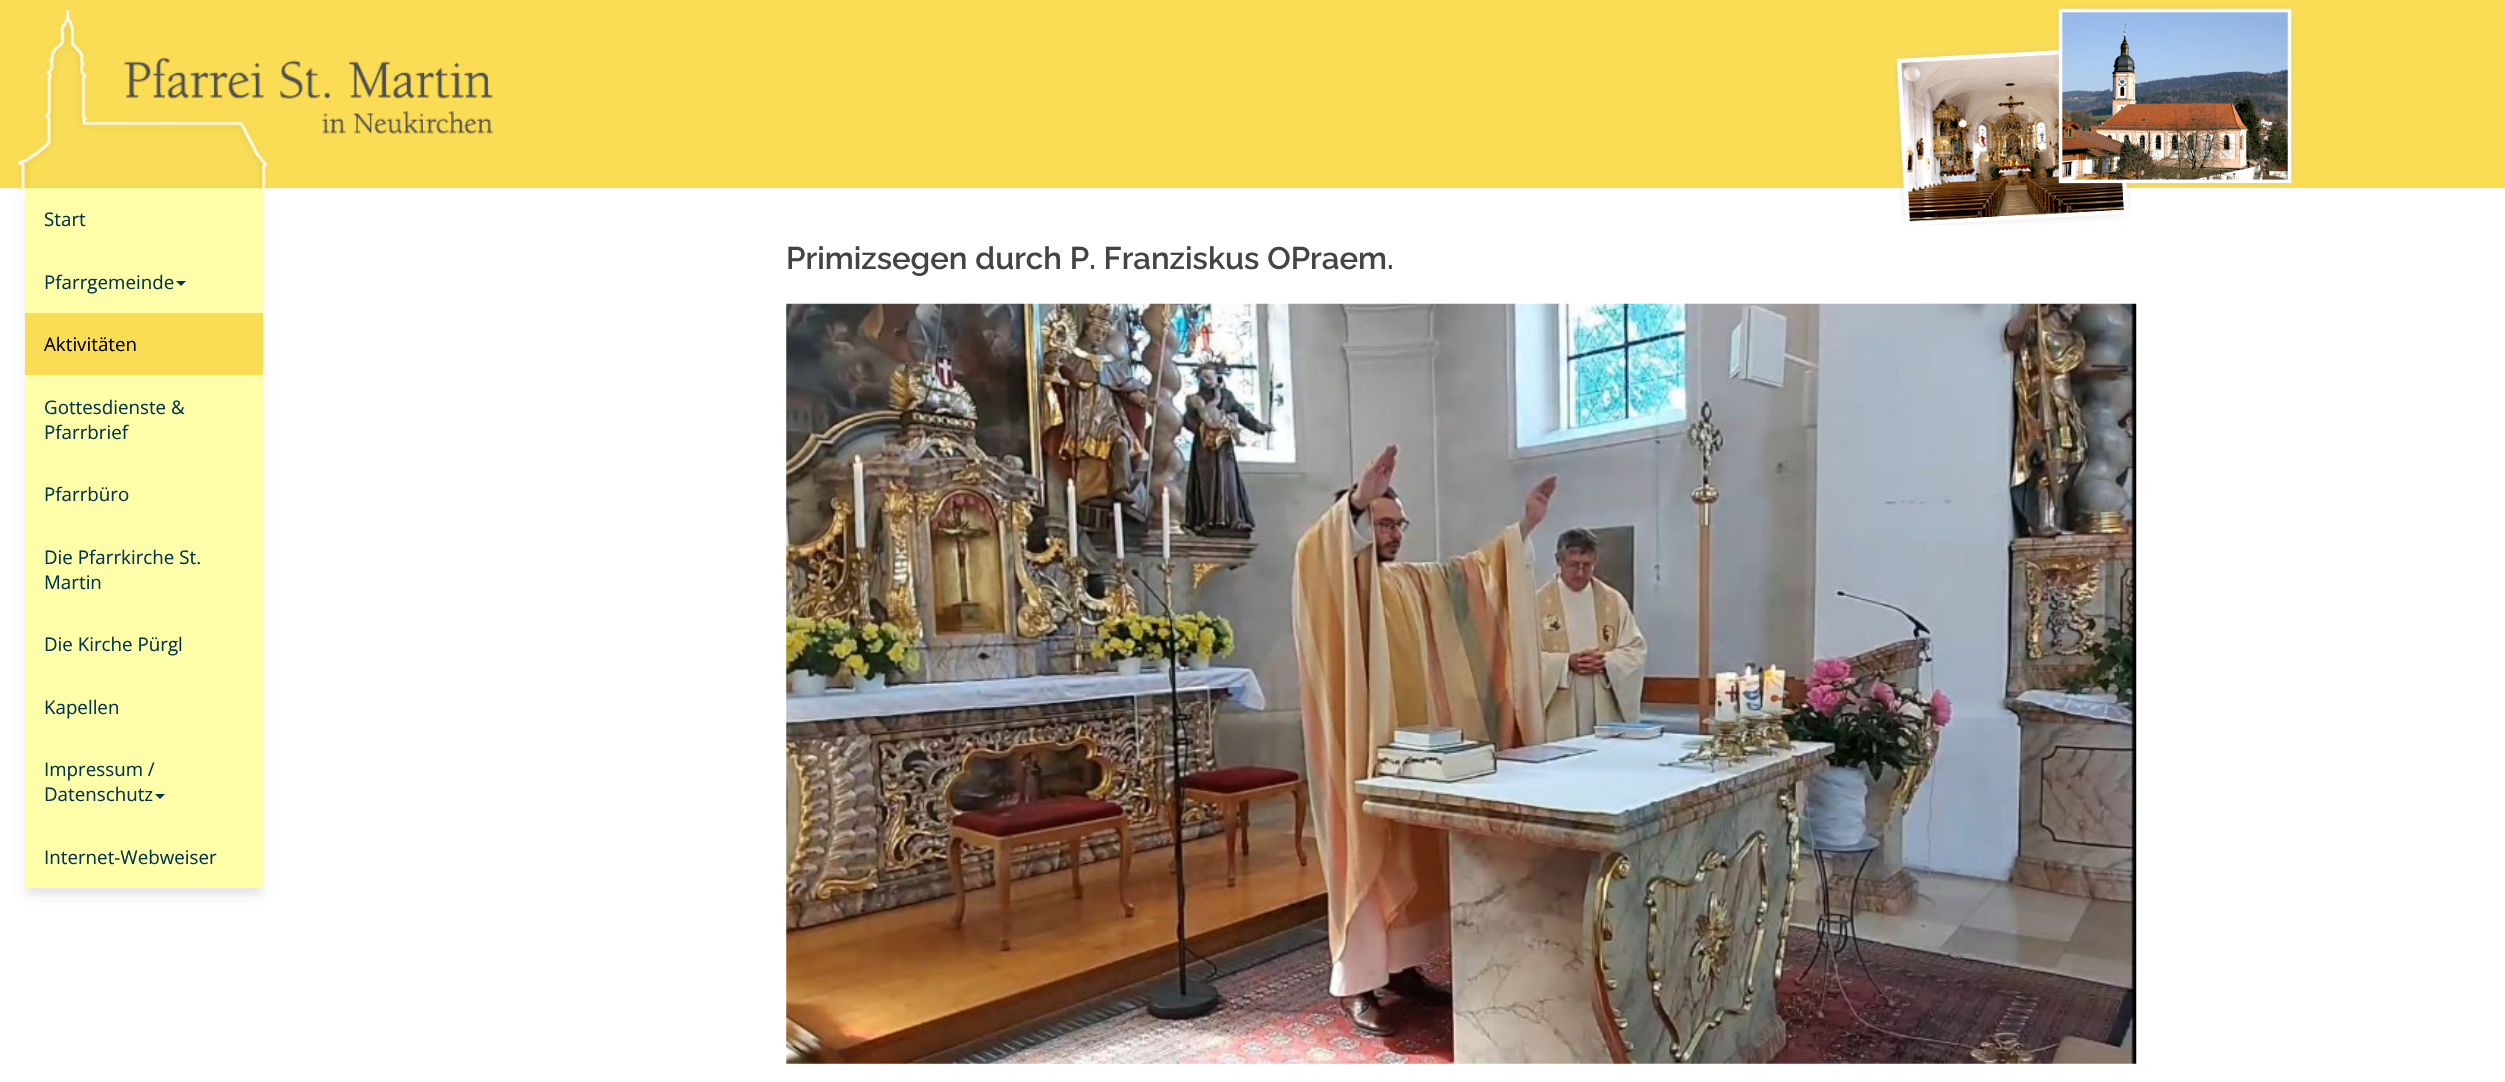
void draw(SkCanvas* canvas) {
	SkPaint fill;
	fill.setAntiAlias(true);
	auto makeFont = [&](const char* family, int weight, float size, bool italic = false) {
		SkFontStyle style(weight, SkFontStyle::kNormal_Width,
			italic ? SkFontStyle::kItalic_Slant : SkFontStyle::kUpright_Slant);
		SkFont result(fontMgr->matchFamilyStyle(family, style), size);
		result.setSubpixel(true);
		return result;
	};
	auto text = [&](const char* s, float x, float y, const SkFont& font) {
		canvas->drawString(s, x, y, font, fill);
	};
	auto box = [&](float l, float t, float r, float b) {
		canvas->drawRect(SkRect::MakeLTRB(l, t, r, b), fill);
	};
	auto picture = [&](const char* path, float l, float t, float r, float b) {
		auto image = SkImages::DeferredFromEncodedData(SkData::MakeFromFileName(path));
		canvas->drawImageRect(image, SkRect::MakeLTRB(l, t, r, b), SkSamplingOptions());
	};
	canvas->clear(0xFFFFFFFF);
	fill.setColor(0xFFFADD55);
	box(0, 0, 2505, 188);
	picture("image0.png", 14, 10, 493, 189);
	picture("image1.png", 1893, 44, 2132, 225);
	picture("image2.png", 2054, 5, 2296, 188);
	fill.setColor(0x0D000000);
	fill.setMaskFilter(SkMaskFilter::MakeBlur(kNormal_SkBlurStyle, 4.5f));
	canvas->drawRect(SkRect::MakeLTRB(26, 198, 261, 895), fill);
	fill.setMaskFilter(nullptr);
	fill.setMaskFilter(SkMaskFilter::MakeBlur(kNormal_SkBlurStyle, 4.5f));
	canvas->drawRect(SkRect::MakeLTRB(26, 198, 261, 895), fill);
	fill.setMaskFilter(nullptr);
	fill.setColor(0xFFFFFFAA);
	box(25, 188, 263, 888);
	fill.setColor(0xFF00354E);
	canvas->drawPath(SkPathBuilder().moveTo(176, 281).lineTo(186, 281).lineTo(181, 286).close().detach(), fill);
	fill.setColor(0xFFFADD55);
	box(25, 313, 263, 375);
	fill.setColor(0xFF00354E);
	canvas->drawPath(SkPathBuilder().moveTo(155, 794).lineTo(165, 794).lineTo(160, 799).close().detach(), fill);
	picture("image3.png", 786, 303, 2137, 1064);
	auto font1 = makeFont("Open Sans", 400, 18.75f);
	text("Start", 44, 226, font1);
	text("Pfarrgemeinde", 44, 289, font1);
	fill.setColor(0xFF000000);
	text("Aktivitäten", 44, 351, font1);
	fill.setColor(0xFF00354E);
	text("Gottesdienste &", 44, 414, font1);
	text("Pfarrbrief", 44, 439, font1);
	text("Pfarrbüro", 44, 501, font1);
	text("Die Pfarrkirche St.", 44, 564, font1);
	text("Martin", 44, 589, font1);
	text("Die Kirche Pürgl", 44, 651, font1);
	text("Kapellen", 44, 714, font1);
	text("Impressum /", 44, 776, font1);
	text("Datenschutz", 44, 801, font1);
	text("Internet-Webweiser", 44, 864, font1);
	auto font2 = makeFont("Raleway", 600, 31.25f);
	fill.setColor(0xFF444444);
	text("Primizsegen durch P. Franziskus OPraem.", 786, 269, font2);
}
